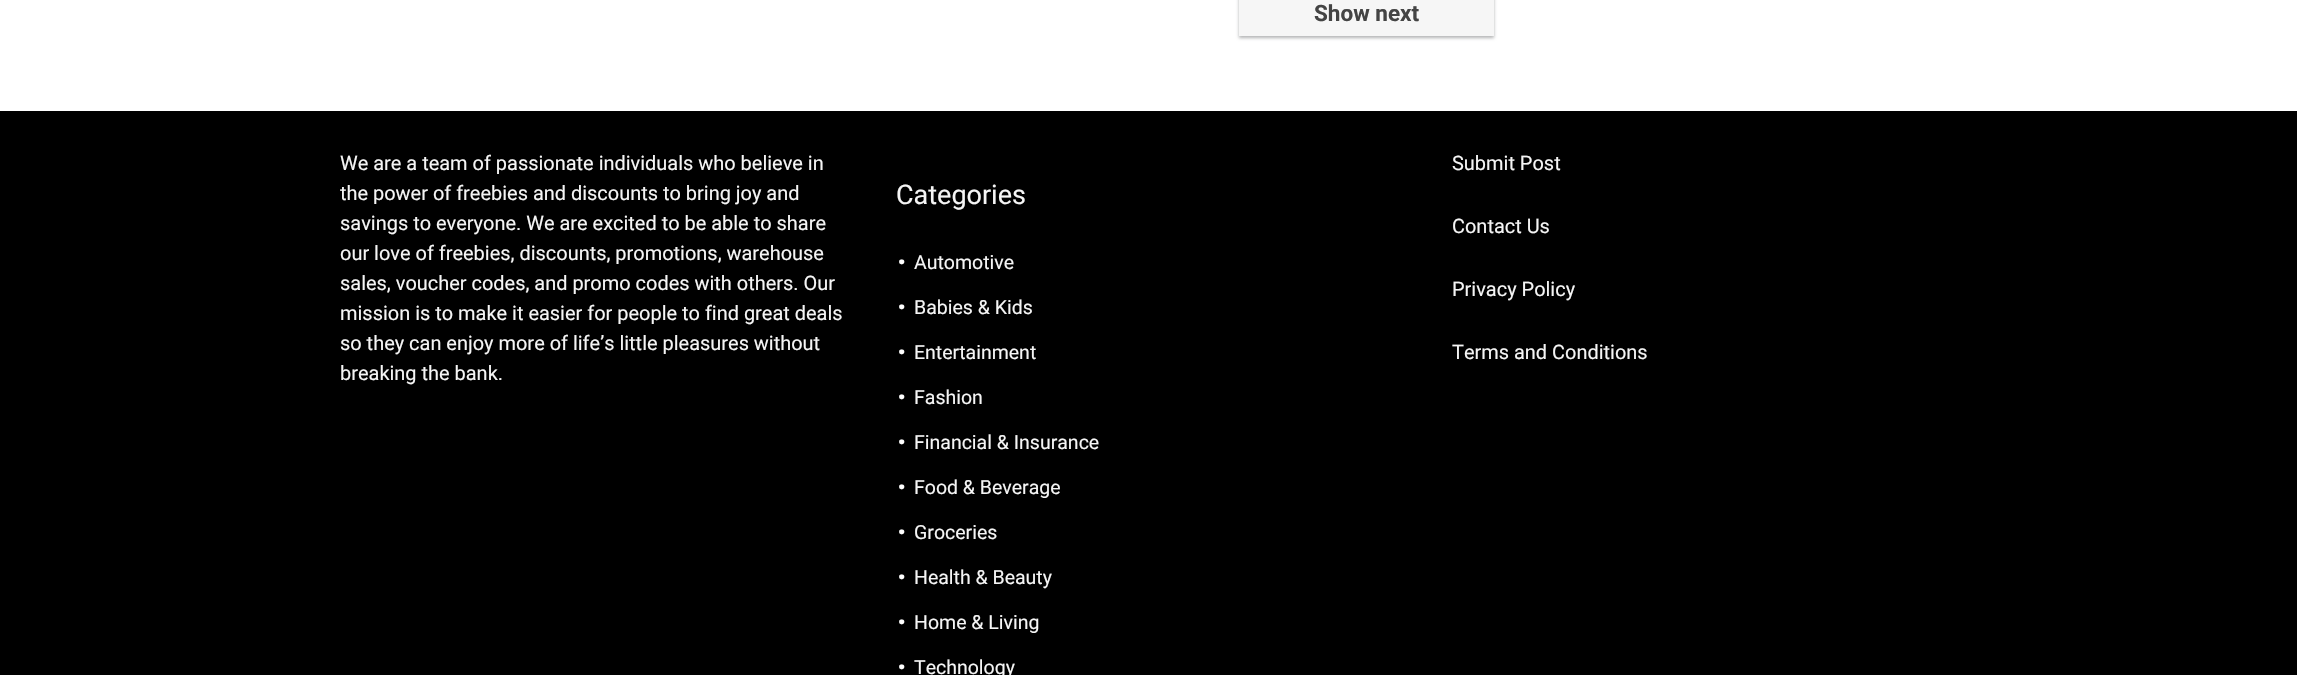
void draw(SkCanvas* canvas) {
	SkPaint fill;
	fill.setAntiAlias(true);
	auto makeFont = [&](const char* family, int weight, float size, bool italic = false) {
		SkFontStyle style(weight, SkFontStyle::kNormal_Width,
			italic ? SkFontStyle::kItalic_Slant : SkFontStyle::kUpright_Slant);
		SkFont result(fontMgr->matchFamilyStyle(family, style), size);
		result.setSubpixel(true);
		return result;
	};
	auto text = [&](const char* s, float x, float y, const SkFont& font) {
		canvas->drawString(s, x, y, font, fill);
	};
	auto box = [&](float l, float t, float r, float b) {
		canvas->drawRect(SkRect::MakeLTRB(l, t, r, b), fill);
	};
	canvas->clear(0xFFFFFFFF);
	fill.setColor(0x14000000);
	fill.setMaskFilter(SkMaskFilter::MakeBlur(kNormal_SkBlurStyle, 1.5f));
	canvas->drawRect(SkRect::MakeLTRB(1239, -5, 1494, 38), fill);
	fill.setMaskFilter(nullptr);
	fill.setColor(0x4D3C4043);
	fill.setMaskFilter(SkMaskFilter::MakeBlur(kNormal_SkBlurStyle, 1.5f));
	canvas->drawRect(SkRect::MakeLTRB(1239, -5, 1494, 38), fill);
	fill.setMaskFilter(nullptr);
	fill.setColor(0xFFF6F6F6);
	box(1239, 0, 1494, 36);
	fill.setColor(0xFF000000);
	box(0, 111, 2297, 675);
	auto font1 = makeFont("Roboto", 700, 22.5f);
	fill.setColor(0xFF444444);
	text("Show next", 1314, 21, font1);
	auto font2 = makeFont("Roboto", 400, 19.95f);
	fill.setColor(0xFFF5F5F5);
	text("We are a team of passionate individuals who believe in", 340, 170, font2);
	text("the power of freebies and discounts to bring joy and", 340, 200, font2);
	text("savings to everyone. We are excited to be able to share", 340, 230, font2);
	text("our love of freebies, discounts, promotions, warehouse", 340, 260, font2);
	text("sales, voucher codes, and promo codes with others. Our", 340, 290, font2);
	text("mission is to make it easier for people to find great deals", 340, 320, font2);
	text("so they can enjoy more of life’s little pleasures without", 340, 350, font2);
	text("breaking the bank.", 340, 380, font2);
	auto font3 = makeFont("Roboto", 400, 27);
	text("Categories", 896, 204, font3);
	auto font4 = makeFont("Roboto", 400, 45);
	fill.setColor(0xFFFFFFFF);
	text(".", 896, 264, font4);
	auto font5 = makeFont("Roboto", 400, 19.5f);
	fill.setColor(0xFFF5F5F5);
	text("Automotive", 914, 269, font5);
	fill.setColor(0xFFFFFFFF);
	text(".", 896, 309, font4);
	fill.setColor(0xFFF5F5F5);
	text("Babies & Kids", 914, 314, font5);
	fill.setColor(0xFFFFFFFF);
	text(".", 896, 354, font4);
	fill.setColor(0xFFF5F5F5);
	text("Entertainment", 914, 359, font5);
	fill.setColor(0xFFFFFFFF);
	text(".", 896, 399, font4);
	fill.setColor(0xFFF5F5F5);
	text("Fashion", 914, 404, font5);
	fill.setColor(0xFFFFFFFF);
	text(".", 896, 444, font4);
	fill.setColor(0xFFF5F5F5);
	text("Financial & Insurance", 914, 449, font5);
	fill.setColor(0xFFFFFFFF);
	text(".", 896, 489, font4);
	fill.setColor(0xFFF5F5F5);
	text("Food & Beverage", 914, 494, font5);
	fill.setColor(0xFFFFFFFF);
	text(".", 896, 534, font4);
	fill.setColor(0xFFF5F5F5);
	text("Groceries", 914, 539, font5);
	fill.setColor(0xFFFFFFFF);
	text(".", 896, 579, font4);
	fill.setColor(0xFFF5F5F5);
	text("Health & Beauty", 914, 584, font5);
	fill.setColor(0xFFFFFFFF);
	text(".", 896, 624, font4);
	fill.setColor(0xFFF5F5F5);
	text("Home & Living", 914, 629, font5);
	fill.setColor(0xFFFFFFFF);
	text(".", 896, 669, font4);
	fill.setColor(0xFFF5F5F5);
	text("Technology", 914, 674, font5);
	text("Submit Post", 1452, 170, font2);
	text("Contact Us", 1452, 233, font2);
	text("Privacy Policy", 1452, 296, font2);
	text("Terms and Conditions", 1452, 359, font2);
}
